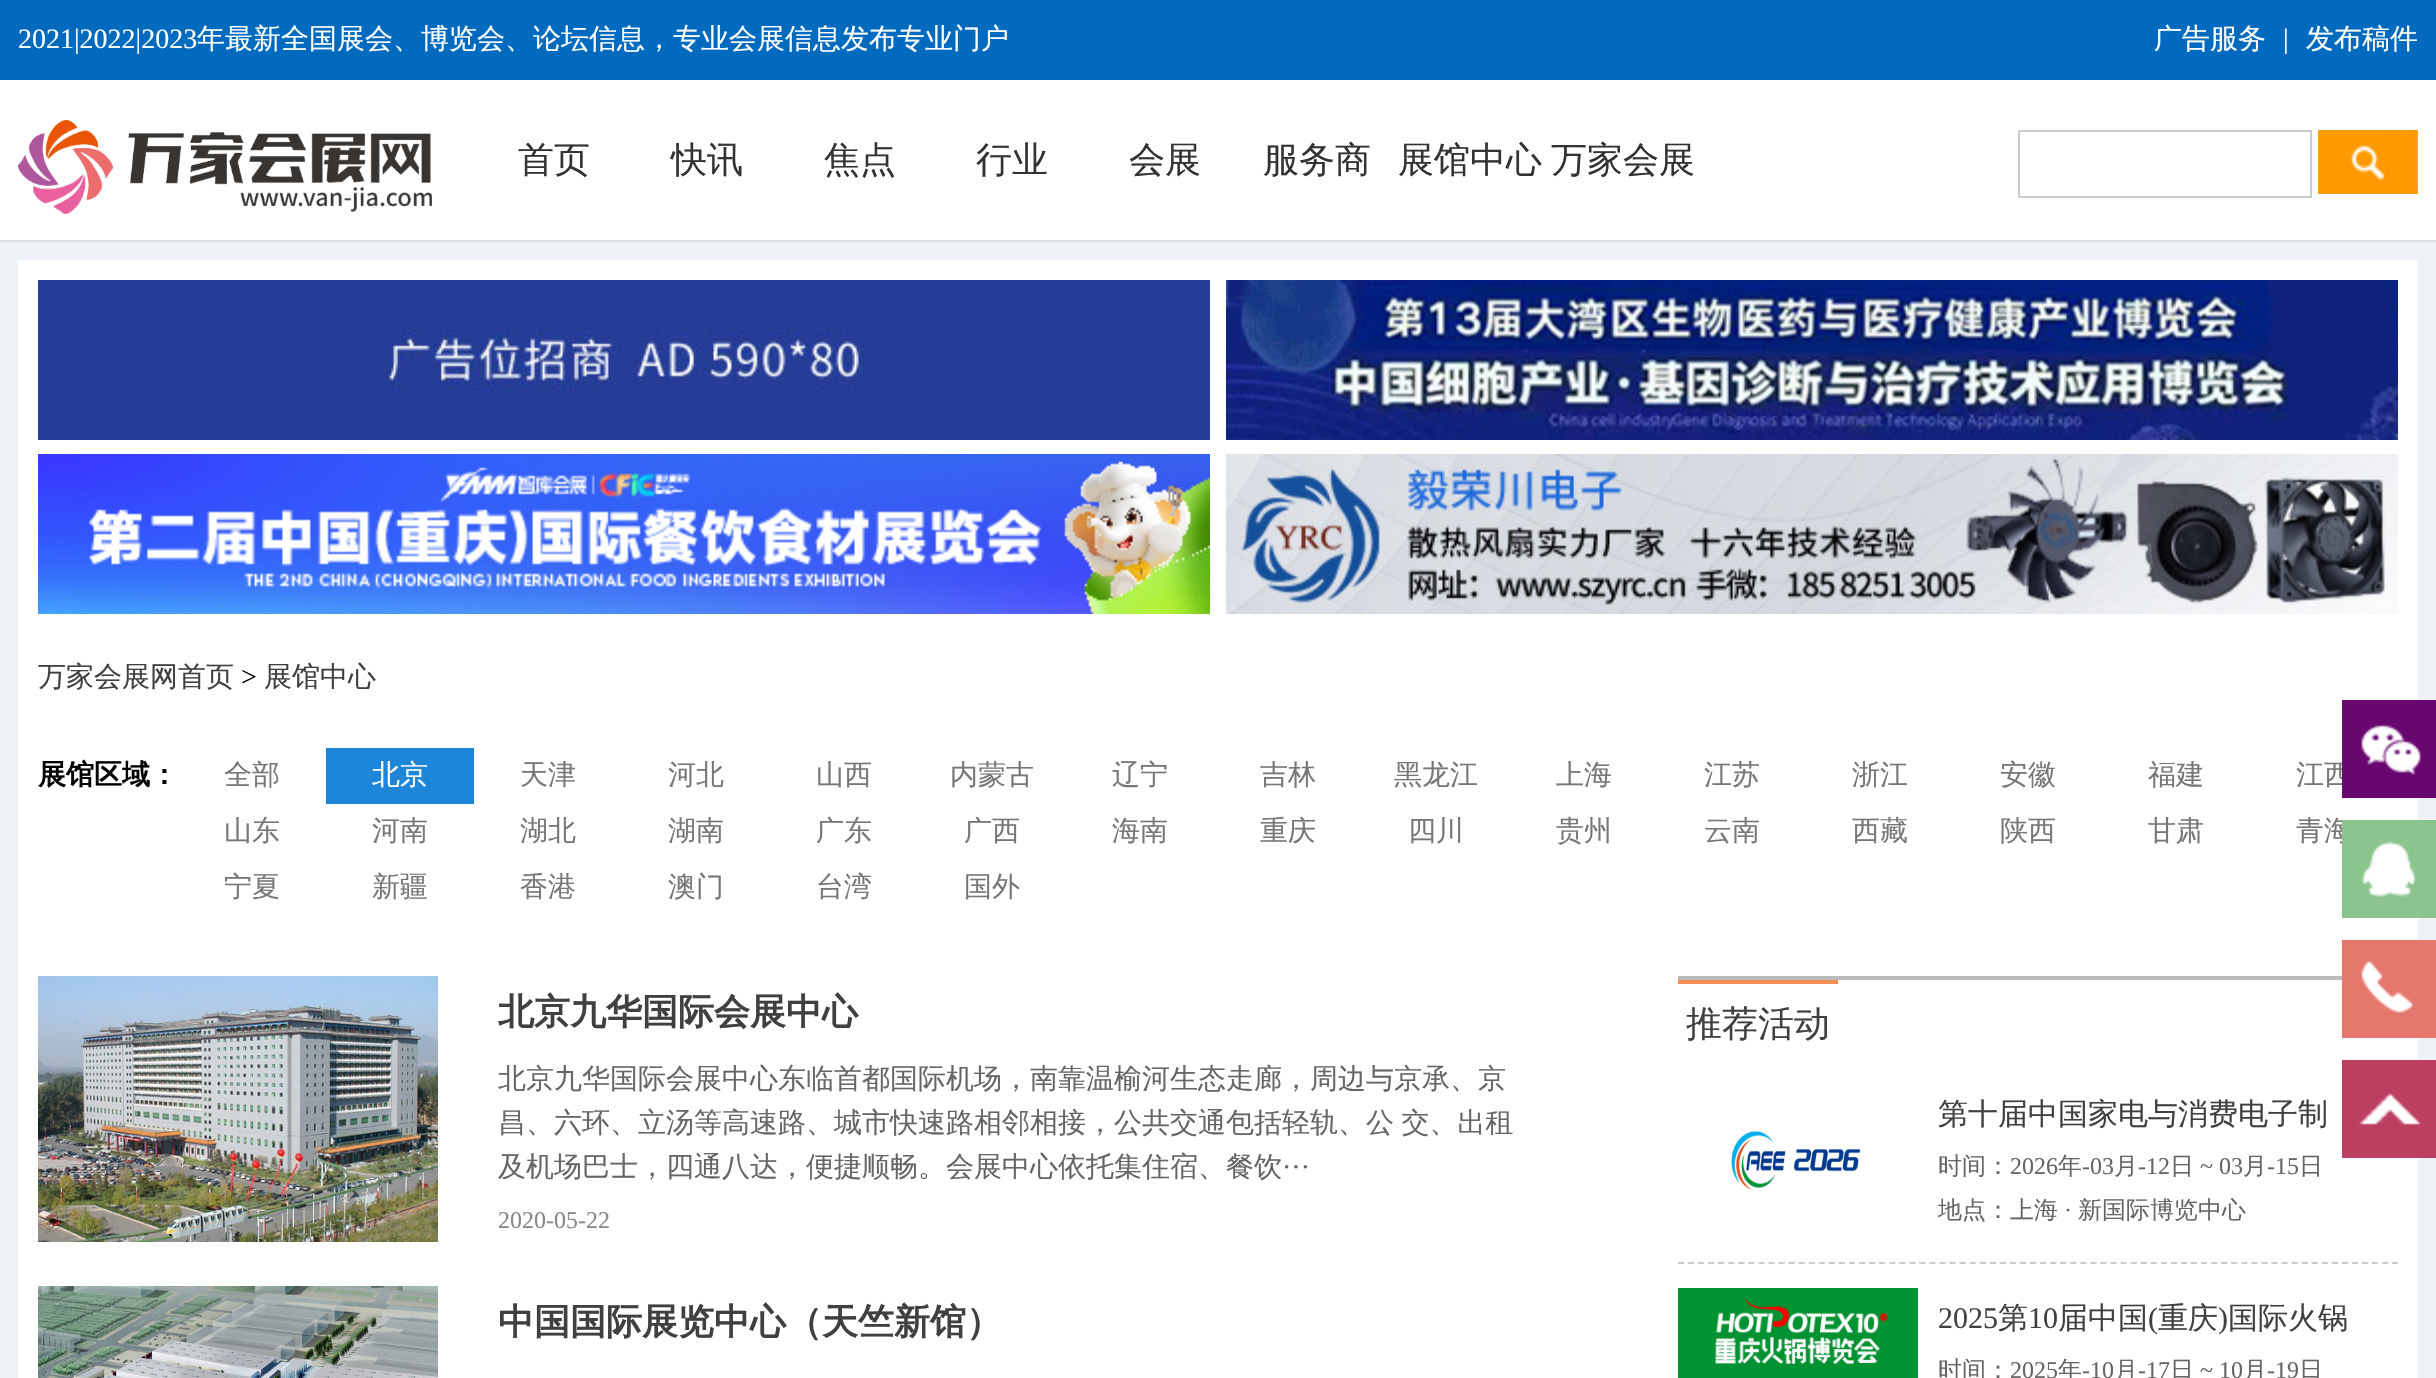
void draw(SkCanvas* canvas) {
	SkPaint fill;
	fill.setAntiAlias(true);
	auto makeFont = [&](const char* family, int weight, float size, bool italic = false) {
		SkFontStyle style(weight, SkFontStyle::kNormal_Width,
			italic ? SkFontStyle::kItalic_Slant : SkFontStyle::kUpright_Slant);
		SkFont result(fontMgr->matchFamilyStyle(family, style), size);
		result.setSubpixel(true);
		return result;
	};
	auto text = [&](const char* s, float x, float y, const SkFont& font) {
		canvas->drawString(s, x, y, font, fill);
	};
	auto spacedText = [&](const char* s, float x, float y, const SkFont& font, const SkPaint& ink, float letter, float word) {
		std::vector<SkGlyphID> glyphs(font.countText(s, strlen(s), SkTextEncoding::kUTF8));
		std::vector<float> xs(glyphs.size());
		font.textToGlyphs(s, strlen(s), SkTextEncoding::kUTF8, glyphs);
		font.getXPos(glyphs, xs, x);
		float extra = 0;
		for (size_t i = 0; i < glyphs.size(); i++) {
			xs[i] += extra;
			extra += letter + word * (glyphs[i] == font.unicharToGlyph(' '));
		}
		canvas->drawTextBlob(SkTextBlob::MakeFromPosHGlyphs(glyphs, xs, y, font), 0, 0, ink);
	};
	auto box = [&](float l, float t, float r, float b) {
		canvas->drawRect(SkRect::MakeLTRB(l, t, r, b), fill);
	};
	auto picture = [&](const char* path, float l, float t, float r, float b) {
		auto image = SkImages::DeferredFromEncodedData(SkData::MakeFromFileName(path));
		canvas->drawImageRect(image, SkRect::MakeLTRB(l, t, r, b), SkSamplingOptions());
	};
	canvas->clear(0xFFEEF1F5);
	fill.setColor(0xFFFFFFFF);
	box(0, 80, 2436, 240);
	fill.setColor(0xFFDDDDDD);
	box(0, 240, 2436, 242);
	fill.setColor(0xFF006ABE);
	box(0, 0, 2436, 80);
	picture("image0.png", 18, 120, 432, 214);
	fill.setStyle(SkPaint::kStroke_Style);
	fill.setStrokeWidth(2);
	fill.setColor(0xFFCCCCCC);
	canvas->drawRect(SkRect::MakeLTRB(2019, 131, 2311, 197), fill);
	picture("image1.png", 2318, 130, 2418, 194);
	fill.setStyle(SkPaint::kFill_Style);
	fill.setColor(0xFFFFFFFF);
	box(18, 260, 2418, 1378);
	picture("image2.png", 38, 280, 1210, 440);
	picture("image3.png", 1226, 280, 2398, 440);
	picture("image4.png", 38, 454, 1210, 614);
	picture("image5.png", 1226, 454, 2398, 614);
	fill.setColor(0xFF1D86D8);
	box(326, 748, 474, 804);
	picture("image6.png", 38, 976, 438, 1242);
	picture("image7.png", 38, 1286, 438, 1378);
	fill.setColor(0xFFBBBBBB);
	box(1678, 976, 2342, 980);
	fill.setColor(0xFFF48E56);
	box(1678, 980, 1838, 984);
	fill.setStyle(SkPaint::kStroke_Style);
	fill.setColor(0xFFCCCCCC);
	fill.setPathEffect(SkDashPathEffect::Make({{6, 4.06f}}, 0));
	canvas->drawPath(SkPathBuilder().moveTo(1678, 1263).lineTo(2398, 1263).detach(), fill);
	fill.setPathEffect(nullptr);
	picture("image8.png", 1731, 1131, 1861, 1190);
	picture("image9.png", 1678, 1288, 1918, 1378);
	picture("image12.png", 2342, 940, 2436, 1038);
	picture("image13.png", 2342, 1060, 2436, 1158);
	auto font1 = makeFont("Liberation Serif", 400, 28);
	fill.setStyle(SkPaint::kFill_Style);
	fill.setColor(0xFFFFFFFF);
	text("2021|2022|2023", 18, 48, font1);
	auto font2 = makeFont("WenQuanYi Zen Hei", 500, 28);
	text("年最新全国展会、博览会、论坛信息，专业会展信息发布专业门户", 197, 48, font2);
	text("广告服务", 2154, 48, font2);
	text("|", 2283, 48, font1);
	text("发布稿件", 2306, 48, font2);
	auto font3 = makeFont("WenQuanYi Zen Hei", 500, 36);
	fill.setColor(0xFF333333);
	text("首页", 518, 172, font3);
	text("快讯", 671, 172, font3);
	text("焦点", 824, 172, font3);
	text("行业", 976, 172, font3);
	text("会展", 1129, 172, font3);
	text("服务商", 1263, 172, font3);
	text("展馆中心", 1398, 172, font3);
	text("万家会展", 1551, 172, font3);
	fill.setColor(0xFF404040);
	text("万家会展网首页", 38, 686, font2);
	fill.setColor(0xFF000000);
	text(">", 241, 686, font1);
	fill.setColor(0xFF404040);
	text("展馆中心", 264, 686, font2);
	auto font4 = makeFont("WenQuanYi Zen Hei", 700, 28);
	fill.setColor(0xFF000000);
	text("展馆区域：", 38, 784, font4);
	fill.setColor(0xFF777777);
	text("全部", 224, 784, font2);
	fill.setColor(0xFFFFFFFF);
	text("北京", 372, 784, font2);
	fill.setColor(0xFF777777);
	text("天津", 520, 784, font2);
	text("河北", 668, 784, font2);
	text("山西", 816, 784, font2);
	text("内蒙古", 950, 784, font2);
	text("辽宁", 1112, 784, font2);
	text("吉林", 1260, 784, font2);
	text("黑龙江", 1394, 784, font2);
	text("上海", 1556, 784, font2);
	text("江苏", 1704, 784, font2);
	text("浙江", 1852, 784, font2);
	text("安徽", 2000, 784, font2);
	text("福建", 2148, 784, font2);
	text("江西", 2296, 784, font2);
	text("山东", 224, 840, font2);
	text("河南", 372, 840, font2);
	text("湖北", 520, 840, font2);
	text("湖南", 668, 840, font2);
	text("广东", 816, 840, font2);
	text("广西", 964, 840, font2);
	text("海南", 1112, 840, font2);
	text("重庆", 1260, 840, font2);
	text("四川", 1408, 840, font2);
	text("贵州", 1556, 840, font2);
	text("云南", 1704, 840, font2);
	text("西藏", 1852, 840, font2);
	text("陕西", 2000, 840, font2);
	text("甘肃", 2148, 840, font2);
	text("青海", 2296, 840, font2);
	text("宁夏", 224, 896, font2);
	text("新疆", 372, 896, font2);
	text("香港", 520, 896, font2);
	text("澳门", 668, 896, font2);
	text("台湾", 816, 896, font2);
	text("国外", 964, 896, font2);
	auto font5 = makeFont("WenQuanYi Zen Hei", 700, 36);
	fill.setColor(0xFF404040);
	text("北京九华国际会展中心", 498, 1024, font5);
	fill.setColor(0xFF666666);
	text("北京九华国际会展中心东临首都国际机场，南靠温榆河生态走廊，周边与京承、京", 498, 1088, font2);
	spacedText("昌、六环、立汤等高速路、城市快速路相邻相接，公共交通包括轻轨、公 交、出租", 498, 1132, font2, fill, 0, -1);
	text("及机场巴士，四通八达，便捷顺畅。会展中心依托集住宿、餐饮", 498, 1176, font2);
	text("···", 1282, 1176, font1);
	auto font6 = makeFont("Liberation Serif", 400, 24);
	fill.setColor(0xFF888888);
	text("2020-05-22", 498, 1228, font6);
	fill.setColor(0xFF404040);
	text("中国国际展览中心（天竺新馆）", 498, 1334, font5);
	text("推荐活动", 1686, 1036, font3);
	auto font7 = makeFont("WenQuanYi Zen Hei", 500, 30);
	text("第十届中国家电与消费电子制", 1938, 1124, font7);
	auto font8 = makeFont("WenQuanYi Zen Hei", 500, 24);
	fill.setColor(0xFF666666);
	text("时间：", 1938, 1174, font8);
	text("2026", 2010, 1174, font6);
	text("年", 2058, 1174, font8);
	text("-03", 2082, 1174, font6);
	text("月", 2114, 1174, font8);
	text("-12", 2138, 1174, font6);
	text("日", 2170, 1174, font8);
	text("~ 03", 2200, 1174, font6);
	text("月", 2243, 1174, font8);
	text("-15", 2267, 1174, font6);
	text("日", 2299, 1174, font8);
	text("地点：上海", 1938, 1218, font8);
	text("·", 2064, 1218, font6);
	text("新国际博览中心", 2078, 1218, font8);
	auto font9 = makeFont("Liberation Serif", 400, 30);
	fill.setColor(0xFF404040);
	text("2025", 1938, 1328, font9);
	text("第", 1998, 1328, font7);
	text("10", 2028, 1328, font9);
	text("届中国", 2058, 1328, font7);
	text("(", 2148, 1328, font9);
	text("重庆", 2158, 1328, font7);
	text(")", 2218, 1328, font9);
	text("国际火锅", 2228, 1328, font7);
	fill.setColor(0xFF666666);
	text("时间：", 1938, 1378, font8);
	text("2025", 2010, 1378, font6);
	text("年", 2058, 1378, font8);
	text("-10", 2082, 1378, font6);
	text("月", 2114, 1378, font8);
	text("-17", 2138, 1378, font6);
	text("日", 2170, 1378, font8);
	text("~ 10", 2200, 1378, font6);
	text("月", 2243, 1378, font8);
	text("-19", 2267, 1378, font6);
	text("日", 2299, 1378, font8);
	picture("image10.png", 2342, 700, 2436, 798);
	picture("image11.png", 2342, 820, 2436, 918);
}
